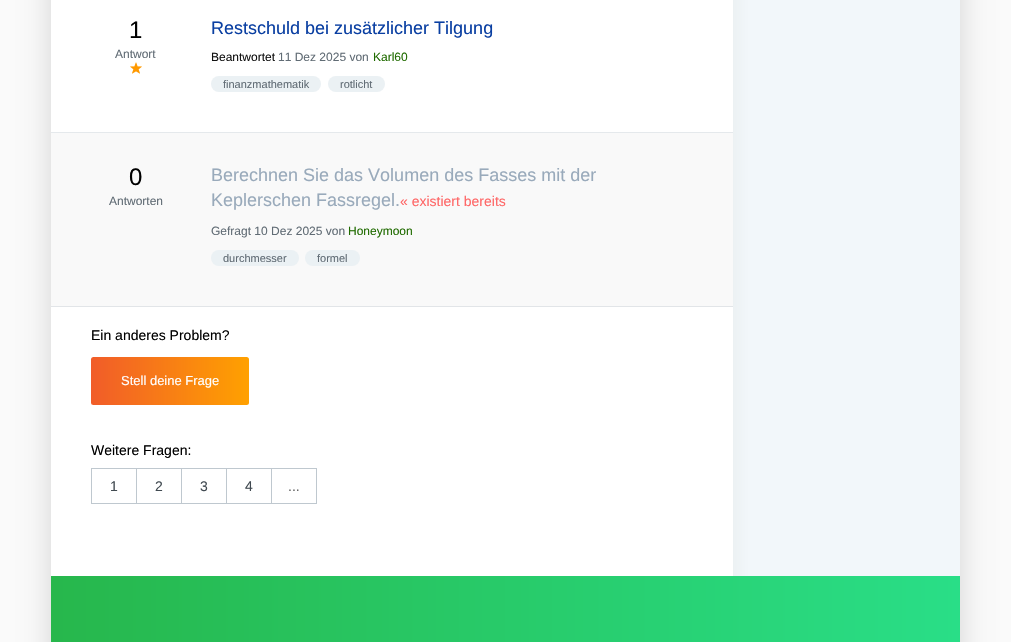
void draw(SkCanvas* canvas) {
	SkPaint fill;
	fill.setAntiAlias(true);
	auto makeFont = [&](const char* family, int weight, float size, bool italic = false) {
		SkFontStyle style(weight, SkFontStyle::kNormal_Width,
			italic ? SkFontStyle::kItalic_Slant : SkFontStyle::kUpright_Slant);
		SkFont result(fontMgr->matchFamilyStyle(family, style), size);
		result.setSubpixel(true);
		return result;
	};
	auto text = [&](const char* s, float x, float y, const SkFont& font) {
		canvas->drawString(s, x, y, font, fill);
	};
	auto box = [&](float l, float t, float r, float b) {
		canvas->drawRect(SkRect::MakeLTRB(l, t, r, b), fill);
	};
	auto roundBox = [&](float l, float t, float r, float b, float radius) {
		canvas->drawRoundRect(SkRect::MakeLTRB(l, t, r, b), radius, radius, fill);
	};
	auto picture = [&](const char* path, float l, float t, float r, float b) {
		auto image = SkImages::DeferredFromEncodedData(SkData::MakeFromFileName(path));
		canvas->drawImageRect(image, SkRect::MakeLTRB(l, t, r, b), SkSamplingOptions());
	};
	canvas->clear(0xFFFAFAFA);
	fill.setColor(0x26000000);
	fill.setMaskFilter(SkMaskFilter::MakeBlur(kNormal_SkBlurStyle, 15));
	canvas->drawRoundRect(SkRect::MakeLTRB(51, -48, 960, 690), 3, 3, fill);
	fill.setMaskFilter(nullptr);
	fill.setColor(0xFFFFFFFF);
	box(51, 0, 733, 576);
	fill.setColor(0xFFE5E9EC);
	box(51, 132, 733, 133);
	picture("image0.png", 130, 62, 142, 74);
	fill.setColor(0xFFEBF1F4);
	roundBox(211, 76, 321, 92, 8);
	roundBox(328, 76, 385, 92, 8);
	fill.setColor(0xFFF9F9F9);
	box(51, 133, 733, 306);
	fill.setColor(0xFFE2E5E8);
	box(51, 306, 733, 307);
	fill.setColor(0xFFEBF1F4);
	roundBox(211, 250, 299, 266, 8);
	roundBox(305, 250, 360, 266, 8);
	{
		const SkColor colors[] = {0xFFF15C29, 0xFFFFA100};
		const float stops[] = {0, 1};
		const SkPoint ends[] = {{91, 381}, {249, 381}};
		fill.setShader(SkGradientShader::MakeLinear(ends, colors, stops, 2, SkTileMode::kClamp));
		fill.setAlpha(255);
	}
	roundBox(91, 357, 249, 405, 2.5f);
	fill.setStyle(SkPaint::kStroke_Style);
	fill.setStrokeWidth(1);
	fill.setShader(nullptr);
	fill.setColor(0xFFBFC8CF);
	canvas->drawRect(SkRect::MakeLTRB(91.5f, 468.5f, 136.5f, 503.5f), fill);
	canvas->drawRect(SkRect::MakeLTRB(136.5f, 468.5f, 181.5f, 503.5f), fill);
	canvas->drawRect(SkRect::MakeLTRB(181.5f, 468.5f, 226.5f, 503.5f), fill);
	canvas->drawRect(SkRect::MakeLTRB(226.5f, 468.5f, 271.5f, 503.5f), fill);
	canvas->drawRect(SkRect::MakeLTRB(271.5f, 468.5f, 316.5f, 503.5f), fill);
	fill.setStyle(SkPaint::kFill_Style);
	{
		const SkColor colors[] = {0xFFECF1F3, 0xFFF2F7FA};
		const float stops[] = {0, 0.07f};
		const SkPoint ends[] = {{733, -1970}, {960, -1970}};
		fill.setShader(SkGradientShader::MakeLinear(ends, colors, stops, 2, SkTileMode::kClamp));
		fill.setAlpha(255);
	}
	box(733, 0, 960, 576);
	{
		const SkColor colors[] = {0xFF27B74C, 0xFF29DE87};
		const float stops[] = {0, 1};
		const SkPoint ends[] = {{51, 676}, {960, 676}};
		fill.setShader(SkGradientShader::MakeLinear(ends, colors, stops, 2, SkTileMode::kClamp));
		fill.setAlpha(255);
	}
	box(51, 576, 960, 642);
	auto font1 = makeFont("Liberation Sans", 400, 24);
	fill.setShader(nullptr);
	fill.setColor(0xFF000000);
	text("1", 129, 38, font1);
	auto font2 = makeFont("Liberation Sans", 400, 12);
	fill.setColor(0xFF616C75);
	text("Antwort", 115, 58, font2);
	auto font3 = makeFont("Liberation Sans", 400, 18);
	fill.setColor(0xFF0A3FA2);
	text("Restschuld bei zusätzlicher Tilgung", 211, 34, font3);
	fill.setColor(0xFF121212);
	text("Beantwortet", 211, 61, font2);
	fill.setColor(0xFF616C75);
	text("11 Dez 2025 von", 278, 61, font2);
	fill.setColor(0xFF206B00);
	text("Karl60", 373, 61, font2);
	auto font4 = makeFont("Liberation Sans", 400, 11);
	fill.setColor(0xFF616C75);
	text("finanzmathematik", 223, 88, font4);
	text("rotlicht", 340, 88, font4);
	fill.setColor(0xFF000000);
	text("0", 129, 185, font1);
	fill.setColor(0xFF616C75);
	text("Antworten", 109, 205, font2);
	fill.setColor(0xFF99AABB);
	text("Berechnen Sie das Volumen des Fasses mit der", 211, 181, font3);
	text("Keplerschen Fassregel.", 211, 206, font3);
	auto font5 = makeFont("Liberation Sans", 400, 14);
	fill.setColor(0xFFFF6666);
	text("« existiert bereits", 400, 206, font5);
	fill.setColor(0xFF616C75);
	text("Gefragt 10 Dez 2025 von", 211, 235, font2);
	fill.setColor(0xFF206B00);
	text("Honeymoon", 348, 235, font2);
	fill.setColor(0xFF616C75);
	text("durchmesser", 223, 262, font4);
	text("formel", 317, 262, font4);
	fill.setColor(0xFF000000);
	text("Ein anderes Problem?", 91, 340, font5);
	auto font6 = makeFont("Liberation Sans", 400, 13);
	fill.setColor(0xFFFFFFFF);
	text("Stell deine Frage", 121, 385, font6);
	fill.setColor(0xFF000000);
	text("Weitere Fragen:", 91, 455, font5);
	fill.setColor(0xFF414A51);
	text("1", 110, 491, font5);
	text("2", 155, 491, font5);
	text("3", 200, 491, font5);
	text("4", 245, 491, font5);
	fill.setColor(0xFF666666);
	text("...", 288, 491, font5);
}
